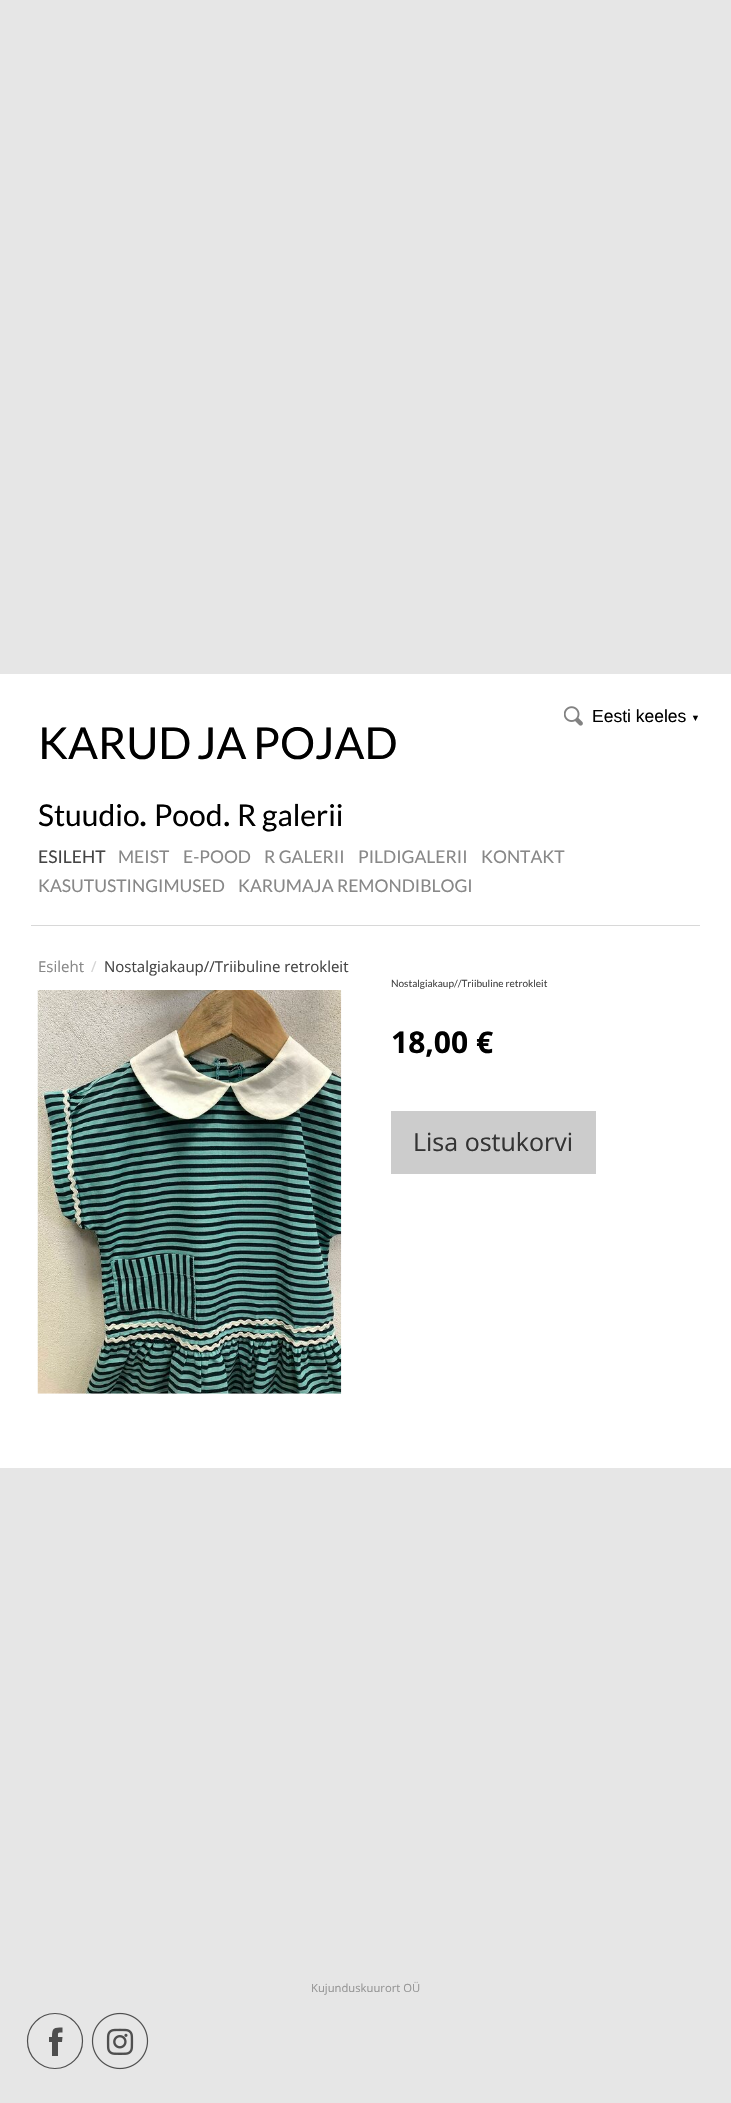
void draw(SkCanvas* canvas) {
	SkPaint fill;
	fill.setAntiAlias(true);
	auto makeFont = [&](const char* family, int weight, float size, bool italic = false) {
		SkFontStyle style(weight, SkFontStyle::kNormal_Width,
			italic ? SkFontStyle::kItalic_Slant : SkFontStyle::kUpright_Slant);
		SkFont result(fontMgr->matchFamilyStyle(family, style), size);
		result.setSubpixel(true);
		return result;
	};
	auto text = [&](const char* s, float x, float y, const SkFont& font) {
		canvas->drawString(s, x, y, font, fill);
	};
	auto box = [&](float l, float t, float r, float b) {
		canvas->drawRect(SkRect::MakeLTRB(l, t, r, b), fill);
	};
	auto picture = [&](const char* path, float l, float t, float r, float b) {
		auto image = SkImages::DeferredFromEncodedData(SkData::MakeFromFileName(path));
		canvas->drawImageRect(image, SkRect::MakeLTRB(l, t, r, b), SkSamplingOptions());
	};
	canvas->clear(0xFFE6E6E6);
	fill.setColor(0xFFFFFFFF);
	box(0, 674, 731, 1468);
	fill.setColor(0xFFD8D8D8);
	box(31, 925, 700, 926);
	picture("image0.png", 564, 706, 583, 726);
	picture("image1.png", 37, 990, 342, 1394);
	fill.setColor(0xFFCCCCCC);
	box(391, 1111, 596, 1174);
	fill.setStyle(SkPaint::kStroke_Style);
	fill.setStrokeWidth(1.2f);
	fill.setColor(0xFF4E4E4E);
	canvas->drawCircle(55, 2041, 27.5f, fill);
	picture("image2.png", 91, 2012, 149, 2070);
	fill.setStyle(SkPaint::kFill_Style);
	canvas->drawPath(SkPathBuilder(SkPathFillType::kEvenOdd).moveTo(58, 2056).lineTo(52, 2056).lineTo(52, 2042).lineTo(49, 2042).lineTo(49, 2037).lineTo(52, 2037).cubicTo(52, 2027.5f, 54, 2027.5f, 62.5f, 2027.5f).lineTo(62.5f, 2032.5f).cubicTo(57.5f, 2032.5f, 58, 2032.5f, 58, 2037).lineTo(62.5f, 2037).lineTo(62, 2042).lineTo(58, 2042).close().detach(), fill);
	auto font1 = makeFont("Liberation Sans", 400, 17.5f);
	fill.setColor(0xFF000000);
	text("Eesti keeles", 592, 722, font1);
	auto font2 = makeFont("Liberation Sans", 400, 9);
	text("▼", 691, 721, font2);
	auto font3 = makeFont("Lato", 400, 44);
	text("KARUD", 38, 759, font3);
	text("JA", 197, 759, font3);
	text("POJAD", 253, 759, font3);
	auto font4 = makeFont("Lato", 400, 30);
	text("Stuudio", 38, 826, font4);
	auto font5 = makeFont("Lato", 400, 38);
	text(".", 139, 826, font5);
	text("Pood", 154, 826, font4);
	auto font6 = makeFont("Lato", 400, 35);
	text(".", 223, 826, font6);
	text("R galerii", 237, 826, font4);
	auto font7 = makeFont("Lato", 400, 17.5f);
	fill.setColor(0xFF444444);
	text("ESILEHT", 38, 863, font7);
	fill.setColor(0xFF888888);
	text("MEIST", 118, 863, font7);
	text("E-POOD", 183, 863, font7);
	text("R GALERII", 264, 863, font7);
	text("PILDIGALERII", 358, 863, font7);
	text("KONTAKT", 481, 863, font7);
	text("KASUTUSTINGIMUSED", 38, 892, font7);
	text("KARUMAJA REMONDIBLOGI", 238, 892, font7);
	auto font8 = makeFont("Open Sans", 400, 15);
	text("Esileht", 38, 972, font8);
	fill.setColor(0xFFD4D4D4);
	text("/", 91, 972, font8);
	fill.setColor(0xFF444444);
	text("Nostalgiakaup//Triibuline retrokleit", 104, 972, font8);
	auto font9 = makeFont("Lato", 400, 10);
	text("Nostalgiakaup//Triibuline retrokleit", 391, 987, font9);
	auto font10 = makeFont("Open Sans", 700, 30);
	fill.setColor(0xFF000000);
	text("18,00 €", 391, 1053, font10);
	auto font11 = makeFont("Open Sans", 400, 25);
	fill.setColor(0xFF333333);
	text("Lisa ostukorvi", 413, 1151, font11);
	auto font12 = makeFont("Open Sans", 400, 11.25f);
	fill.setColor(0xFF969696);
	text("Kujunduskuurort OÜ", 311, 1992, font12);
}
